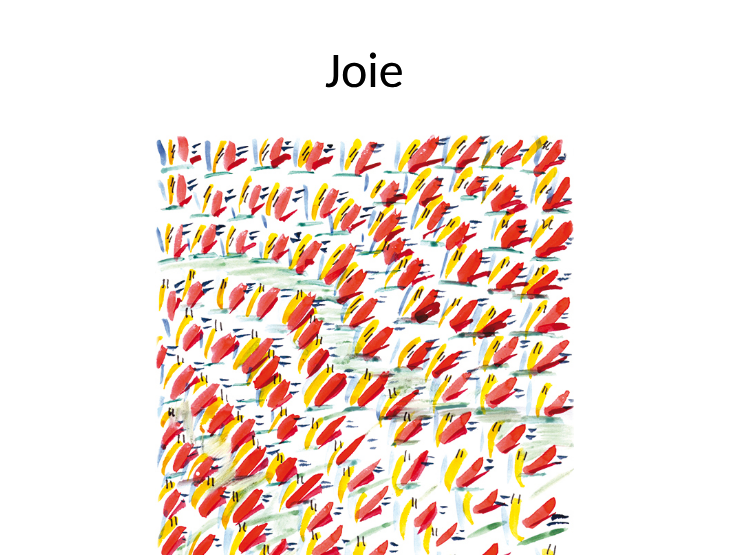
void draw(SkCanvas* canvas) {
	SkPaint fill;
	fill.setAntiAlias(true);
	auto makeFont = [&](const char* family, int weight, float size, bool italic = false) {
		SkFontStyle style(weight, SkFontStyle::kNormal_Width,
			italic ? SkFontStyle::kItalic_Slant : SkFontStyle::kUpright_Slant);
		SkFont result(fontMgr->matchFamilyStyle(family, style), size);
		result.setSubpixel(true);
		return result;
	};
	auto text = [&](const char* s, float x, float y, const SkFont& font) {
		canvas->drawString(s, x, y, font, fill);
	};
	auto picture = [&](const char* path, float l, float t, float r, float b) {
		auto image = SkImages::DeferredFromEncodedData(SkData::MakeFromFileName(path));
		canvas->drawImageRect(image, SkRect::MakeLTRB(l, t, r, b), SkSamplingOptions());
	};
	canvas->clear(0xFFFFFFFF);
	picture("image0.png", 155, 134, 574, 555);
	auto font1 = makeFont("Carlito", 400, 50);
	fill.setColor(0xFF000000);
	text("Joie", 325, 87, font1);
}
